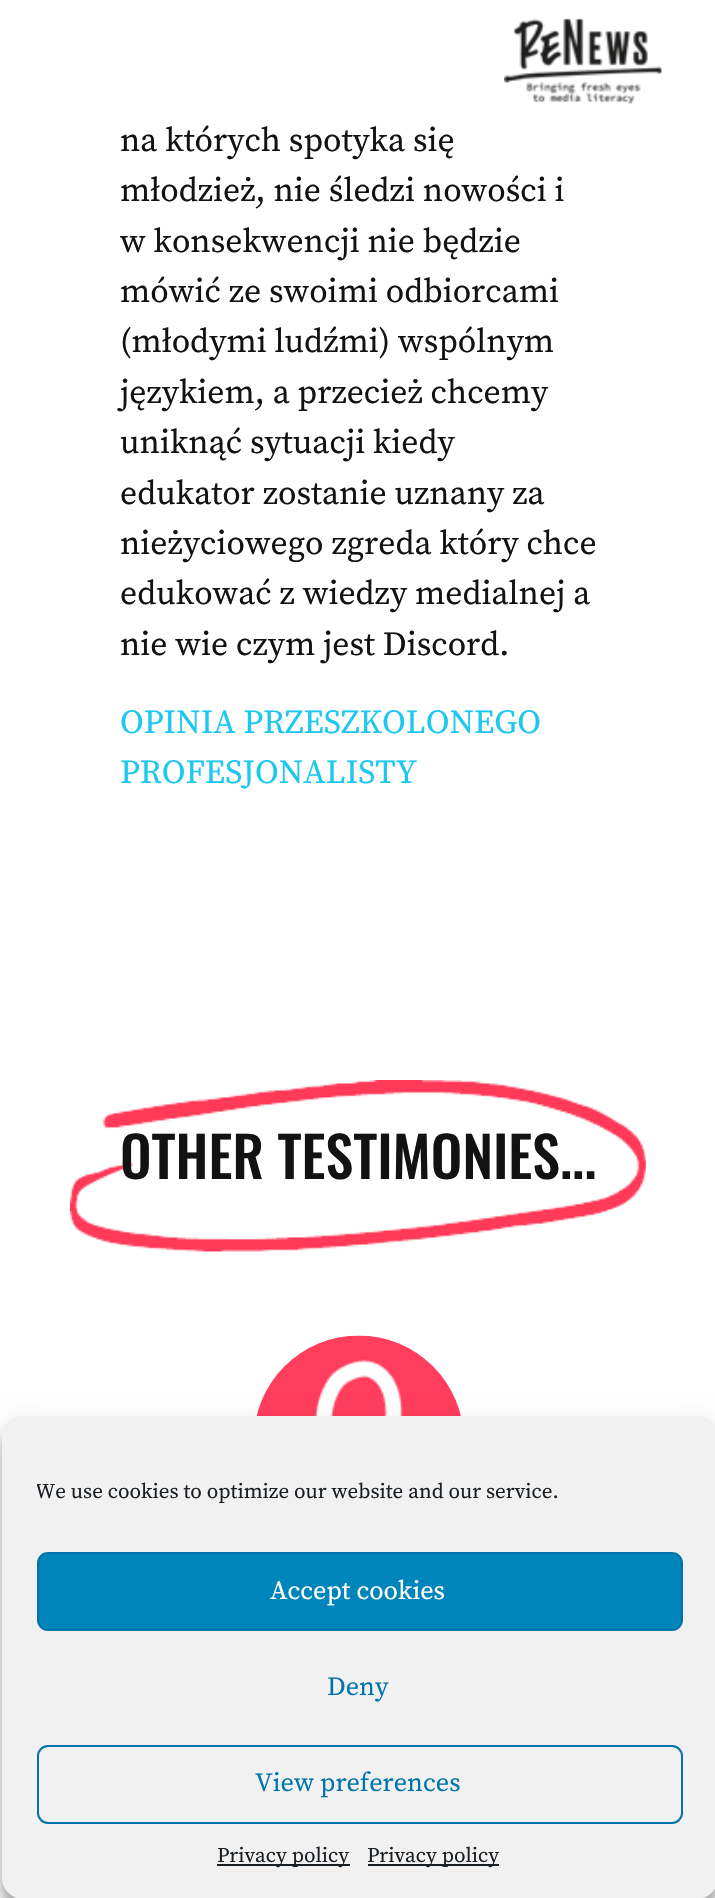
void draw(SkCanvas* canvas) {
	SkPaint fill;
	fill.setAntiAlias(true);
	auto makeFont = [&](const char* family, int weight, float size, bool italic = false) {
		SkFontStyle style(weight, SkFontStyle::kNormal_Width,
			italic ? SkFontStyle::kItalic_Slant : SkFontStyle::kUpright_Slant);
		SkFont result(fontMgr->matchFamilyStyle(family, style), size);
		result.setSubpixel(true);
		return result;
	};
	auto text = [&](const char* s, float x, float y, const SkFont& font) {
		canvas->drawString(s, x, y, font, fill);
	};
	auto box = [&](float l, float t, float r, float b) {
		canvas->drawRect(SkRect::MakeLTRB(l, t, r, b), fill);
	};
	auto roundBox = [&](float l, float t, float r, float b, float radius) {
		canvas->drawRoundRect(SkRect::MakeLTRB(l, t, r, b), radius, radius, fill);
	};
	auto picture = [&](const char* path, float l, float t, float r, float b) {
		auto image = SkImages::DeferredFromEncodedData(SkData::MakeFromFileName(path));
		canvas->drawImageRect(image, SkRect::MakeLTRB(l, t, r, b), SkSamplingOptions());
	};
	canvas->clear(0xFFFFFFFF);
	picture("image0.png", 504, 18, 662, 104);
	picture("image1.png", 70, 1080, 646, 1252);
	picture("image2.png", 256, 1335, 461, 1416);
	fill.setColor(0x3B000000);
	fill.setMaskFilter(SkMaskFilter::MakeBlur(kNormal_SkBlurStyle, 5));
	canvas->drawRoundRect(SkRect::MakeLTRB(2, 1426, 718, 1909), 21, 21, fill);
	fill.setMaskFilter(nullptr);
	fill.setColor(0x30000000);
	fill.setMaskFilter(SkMaskFilter::MakeBlur(kNormal_SkBlurStyle, 17.5f));
	canvas->drawRoundRect(SkRect::MakeLTRB(2, 1433, 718, 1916), 21, 21, fill);
	fill.setMaskFilter(nullptr);
	fill.setColor(0xFFF1F1F1);
	roundBox(2, 1416, 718, 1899, 21);
	fill.setColor(0xFF0085BA);
	canvas->drawRoundRect(SkRect::MakeLTRB(38, 1553, 682, 1630), 10, 10, fill);
	fill.setStyle(SkPaint::kStroke_Style);
	fill.setStrokeWidth(2);
	fill.setColor(0xFF0073AA);
	canvas->drawRoundRect(SkRect::MakeLTRB(38, 1553, 682, 1630), 10, 10, fill);
	canvas->drawRoundRect(SkRect::MakeLTRB(38, 1746, 682, 1823), 10, 10, fill);
	fill.setStyle(SkPaint::kFill_Style);
	fill.setColor(0xFF191E23);
	box(217, 1864, 350, 1866);
	box(368, 1864, 499, 1866);
	auto font1 = makeFont("Source Serif Pro", 400, 33.6f);
	fill.setColor(0xFF121212);
	text("na których spotyka się", 120, 151, font1);
	text("młodzież, nie śledzi nowości i", 120, 201, font1);
	text("w konsekwencji nie będzie", 120, 252, font1);
	text("mówić ze swoimi odbiorcami", 120, 302, font1);
	text("(młodymi ludźmi) wspólnym", 120, 352, font1);
	text("językiem, a przecież chcemy", 120, 403, font1);
	text("uniknąć sytuacji kiedy", 120, 453, font1);
	text("edukator zostanie uznany za", 120, 504, font1);
	text("nieżyciowego zgreda który chce", 120, 554, font1);
	text("edukować z wiedzy medialnej a", 120, 604, font1);
	text("nie wie czym jest Discord.", 120, 655, font1);
	fill.setColor(0xFF1CC7F0);
	text("OPINIA PRZESZKOLONEGO", 120, 733, font1);
	text("PROFESJONALISTY", 120, 783, font1);
	auto font2 = makeFont("Oswald", 500, 56);
	fill.setColor(0xFF121212);
	text("OTHER TESTIMONIES...", 120, 1179, font2);
	canvas->save();
	canvas->clipRect(SkRect::MakeLTRB(37, 1477, 683, 1517));
	auto font3 = makeFont("Source Serif Pro", 400, 21);
	fill.setColor(0xFF191E23);
	text("We use cookies to optimize our website and our service.", 35, 1498, font3);
	canvas->restore();
	auto font4 = makeFont("Source Serif Pro", 400, 26.25f);
	fill.setColor(0xFFFFFFFF);
	text("Accept cookies", 270, 1599, font4);
	fill.setColor(0xFF0073AA);
	text("Deny", 327, 1695, font4);
	text("View preferences", 255, 1791, font4);
	fill.setColor(0xFF191E23);
	text("Privacy policy", 217, 1862, font3);
	text("Privacy policy", 367, 1862, font3);
}
